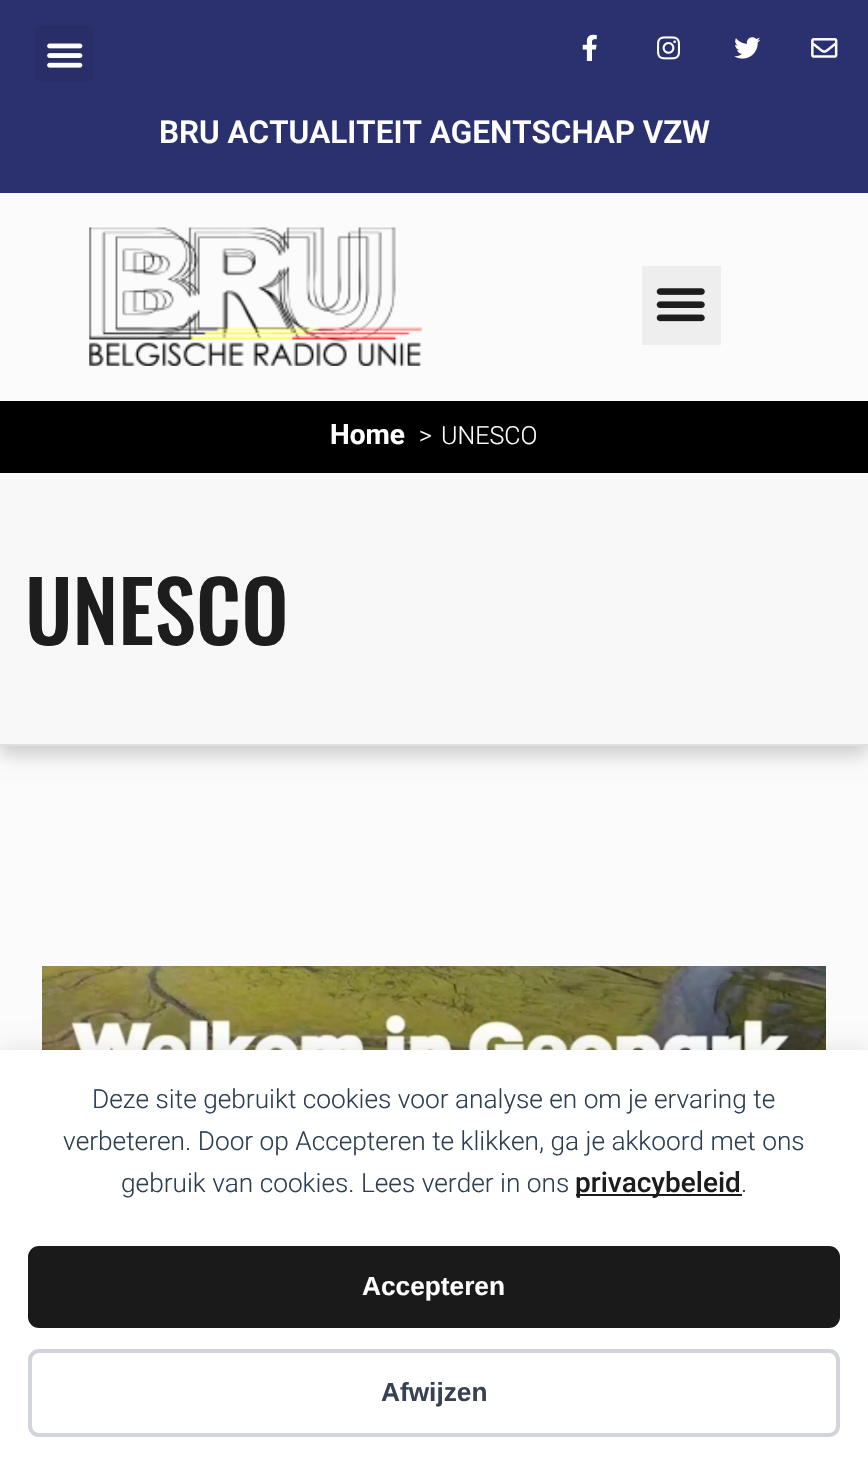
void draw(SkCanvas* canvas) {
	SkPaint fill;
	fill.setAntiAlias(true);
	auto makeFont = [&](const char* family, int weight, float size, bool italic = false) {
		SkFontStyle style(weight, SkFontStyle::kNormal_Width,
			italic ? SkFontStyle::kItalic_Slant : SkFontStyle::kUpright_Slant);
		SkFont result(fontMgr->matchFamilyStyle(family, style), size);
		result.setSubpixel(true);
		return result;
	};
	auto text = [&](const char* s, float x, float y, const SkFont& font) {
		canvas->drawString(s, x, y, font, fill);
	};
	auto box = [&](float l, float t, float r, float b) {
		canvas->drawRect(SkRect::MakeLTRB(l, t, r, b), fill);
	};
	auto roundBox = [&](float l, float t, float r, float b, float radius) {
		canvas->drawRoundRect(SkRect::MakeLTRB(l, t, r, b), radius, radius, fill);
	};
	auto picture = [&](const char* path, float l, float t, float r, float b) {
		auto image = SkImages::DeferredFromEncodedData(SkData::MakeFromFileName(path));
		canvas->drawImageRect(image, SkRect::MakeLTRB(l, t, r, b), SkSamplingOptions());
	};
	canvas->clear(0xFFFBFBFB);
	fill.setColor(0xFF2B306F);
	box(0, 0, 868, 193);
	fill.setColor(0xFF292E69);
	roundBox(35, 25, 93, 82, 5);
	picture("image0.png", 47, 43, 83, 68);
	picture("image1.png", 582, 34, 597, 61);
	picture("image2.png", 657, 36, 681, 60);
	picture("image3.png", 734, 37, 761, 59);
	picture("image4.png", 811, 38, 838, 58);
	picture("image5.png", 89, 227, 422, 366);
	fill.setColor(0xFFEEEEEE);
	box(642, 266, 721, 345);
	picture("image6.png", 656, 288, 705, 322);
	fill.setColor(0xFF000000);
	box(0, 401, 868, 473);
	fill.setColor(0x33000000);
	fill.setMaskFilter(SkMaskFilter::MakeBlur(kNormal_SkBlurStyle, 9));
	canvas->drawRect(SkRect::MakeLTRB(0, 481, 868, 754), fill);
	fill.setMaskFilter(nullptr);
	fill.setColor(0xFFF8F8F8);
	box(0, 473, 868, 744);
	fill.setColor(0xFFE0E0E0);
	box(0, 744, 868, 746);
	picture("image7.png", 42, 966, 826, 1050);
	fill.setColor(0x14000000);
	fill.setMaskFilter(SkMaskFilter::MakeBlur(kNormal_SkBlurStyle, 9));
	canvas->drawRect(SkRect::MakeLTRB(0, 1047, 868, 1461), fill);
	fill.setMaskFilter(nullptr);
	fill.setColor(0xFFFFFFFF);
	box(0, 1050, 868, 1464);
	fill.setColor(0xFF1A1A1A);
	box(576, 1194, 742, 1196);
	roundBox(28, 1246, 840, 1328, 11);
	fill.setStyle(SkPaint::kStroke_Style);
	fill.setStrokeWidth(4);
	fill.setColor(0xFFD1D5DB);
	canvas->drawRoundRect(SkRect::MakeLTRB(30, 1351, 838, 1435), 9, 9, fill);
	auto font1 = makeFont("Roboto", 600, 31.5f);
	fill.setStyle(SkPaint::kFill_Style);
	fill.setColor(0xFFFFFFFF);
	text("BRU ACTUALITEIT AGENTSCHAP VZW", 159, 143, font1);
	auto font2 = makeFont("Roboto", 700, 28);
	text("Home", 330, 444, font2);
	auto font3 = makeFont("Roboto", 300, 25);
	text(">", 419, 444, font3);
	text("UNESCO", 441, 444, font3);
	auto font4 = makeFont("Oswald", 500, 84);
	fill.setColor(0xFF1D1D1D);
	text("UNESCO", 25, 645, font4);
	auto font5 = makeFont("Roboto", 300, 26.25f);
	fill.setColor(0xFF2C3E50);
	text("Deze site gebruikt cookies voor analyse en om je ervaring te", 92, 1108, font5);
	text("verbeteren. Door op Accepteren te klikken, ga je akkoord met ons", 63, 1150, font5);
	text("gebruik van cookies. Lees verder in ons", 121, 1192, font5);
	auto font6 = makeFont("Roboto", 500, 28);
	fill.setColor(0xFF1D1D1D);
	text("privacybeleid", 575, 1192, font6);
	fill.setColor(0xFF2C3E50);
	text(".", 741, 1192, font5);
	auto font7 = makeFont("Liberation Sans", 700, 26.25f);
	fill.setColor(0xFFFFFFFF);
	text("Accepteren", 362, 1295, font7);
	fill.setColor(0xFF374151);
	text("Afwijzen", 381, 1401, font7);
}
